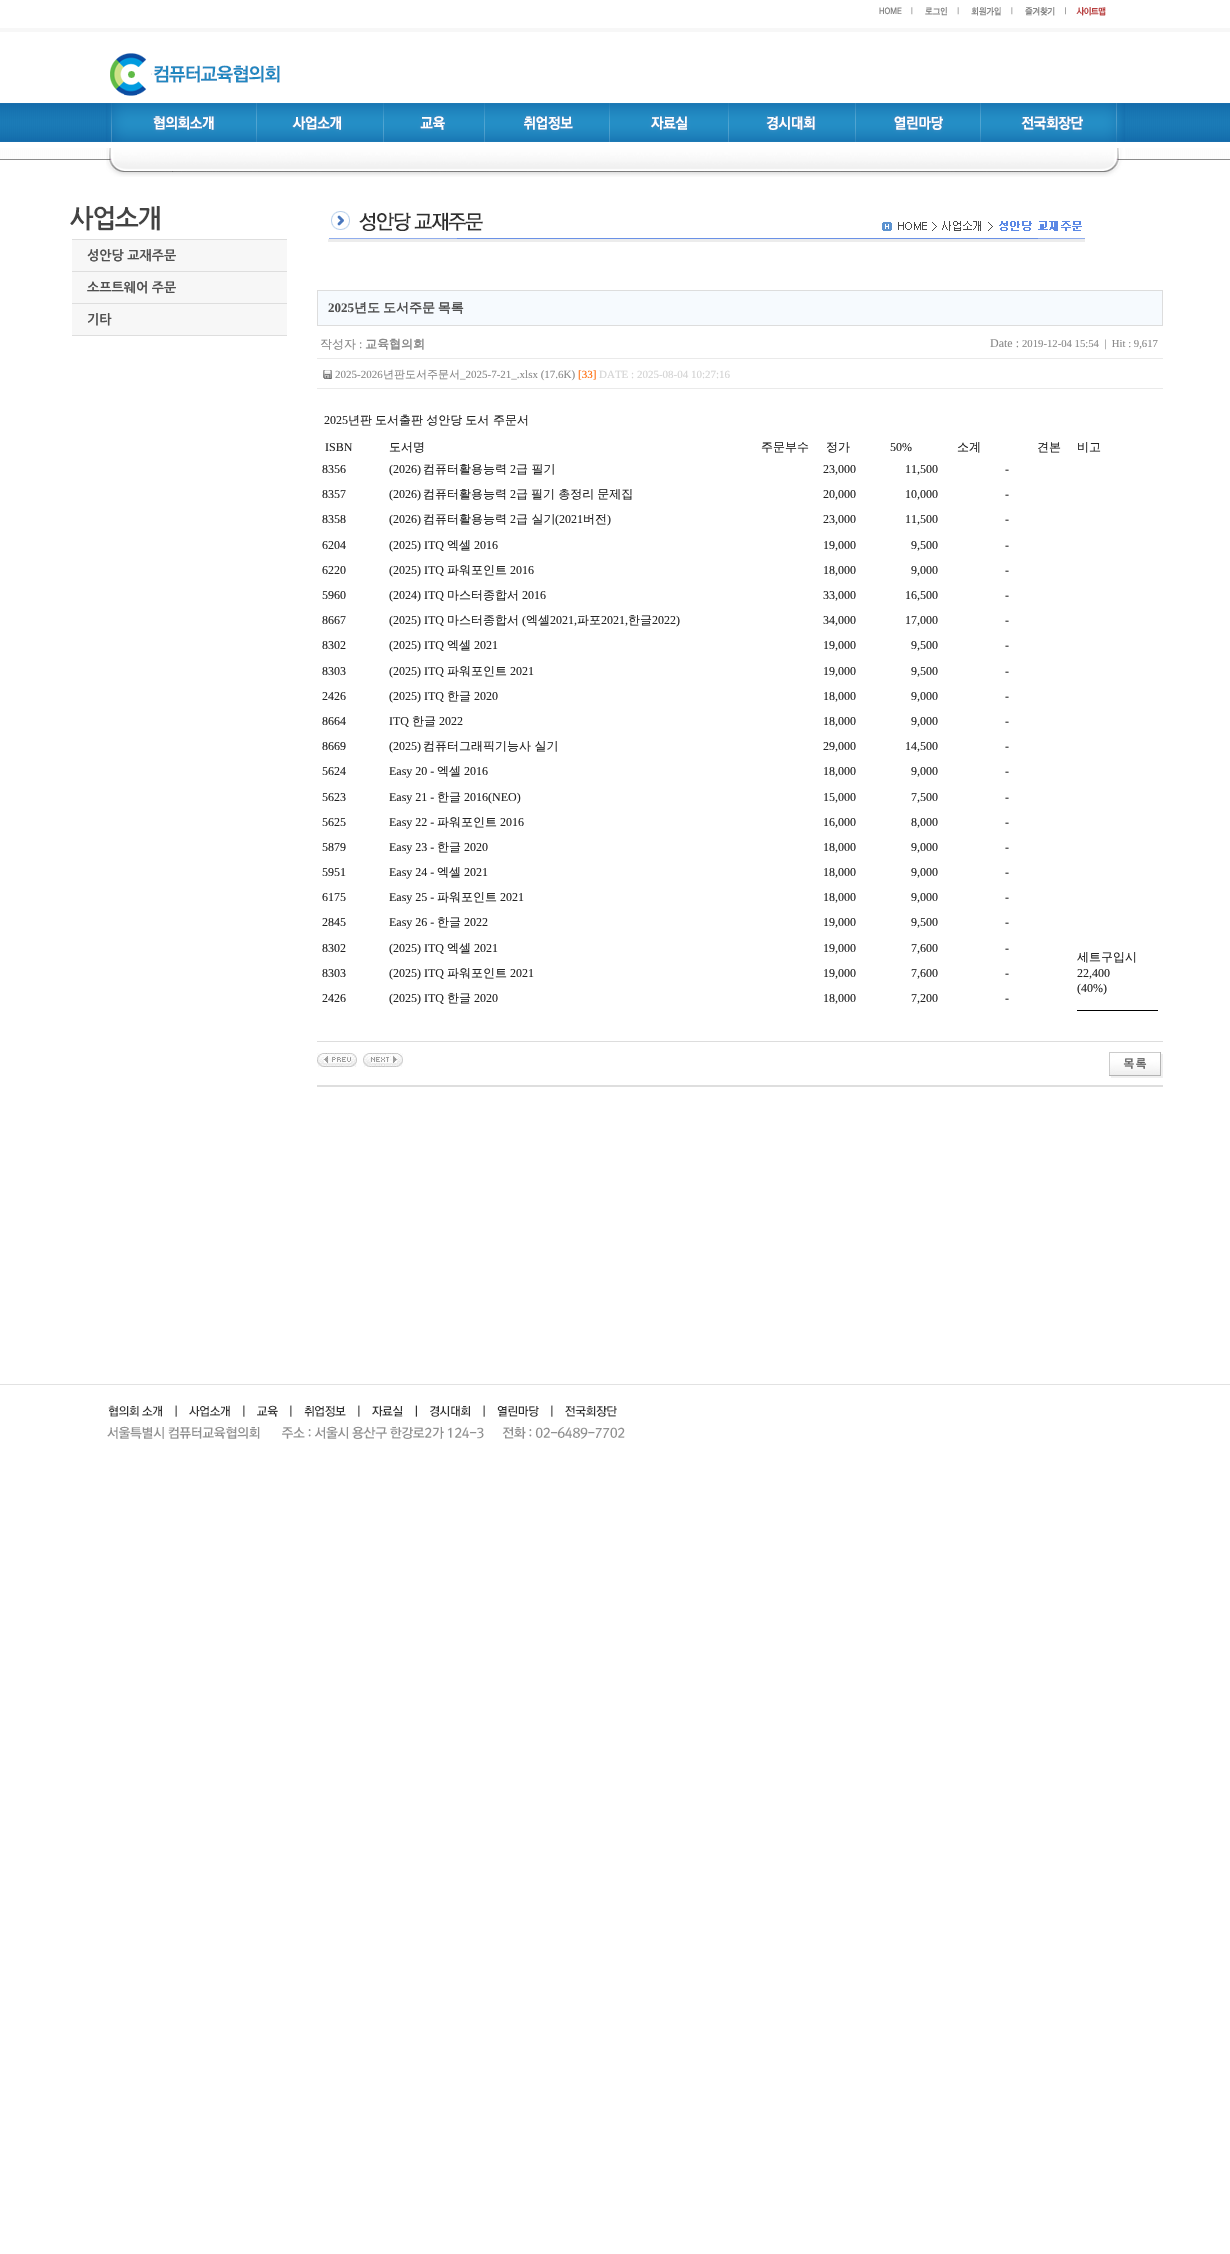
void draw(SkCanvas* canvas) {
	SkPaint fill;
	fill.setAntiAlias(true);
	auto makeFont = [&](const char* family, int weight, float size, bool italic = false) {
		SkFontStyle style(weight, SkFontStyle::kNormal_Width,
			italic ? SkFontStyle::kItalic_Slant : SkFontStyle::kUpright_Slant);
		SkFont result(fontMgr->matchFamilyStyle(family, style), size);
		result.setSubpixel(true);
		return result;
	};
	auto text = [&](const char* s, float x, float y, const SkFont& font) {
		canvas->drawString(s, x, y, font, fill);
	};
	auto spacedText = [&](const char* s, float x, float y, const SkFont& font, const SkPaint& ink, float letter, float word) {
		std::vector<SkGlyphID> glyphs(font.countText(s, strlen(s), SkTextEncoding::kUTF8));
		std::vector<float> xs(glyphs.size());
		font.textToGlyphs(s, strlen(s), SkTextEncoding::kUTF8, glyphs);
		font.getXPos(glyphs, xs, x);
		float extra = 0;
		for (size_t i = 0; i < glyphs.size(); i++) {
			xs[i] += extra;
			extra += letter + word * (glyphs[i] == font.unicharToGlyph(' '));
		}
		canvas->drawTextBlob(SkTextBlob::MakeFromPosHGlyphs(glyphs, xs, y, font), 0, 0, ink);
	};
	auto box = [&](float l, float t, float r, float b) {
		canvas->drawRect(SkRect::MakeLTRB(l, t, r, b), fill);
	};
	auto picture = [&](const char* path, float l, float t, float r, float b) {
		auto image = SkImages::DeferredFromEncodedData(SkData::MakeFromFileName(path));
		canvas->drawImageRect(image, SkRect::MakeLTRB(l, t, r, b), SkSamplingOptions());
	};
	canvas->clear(0xFFFFFFFF);
	fill.setColor(0xFFF7F7F7);
	box(0, 28, 1230, 32);
	picture("image0.png", 879, 7, 913, 15);
	picture("image1.png", 925, 7, 959, 16);
	picture("image2.png", 971, 7, 1013, 16);
	picture("image3.png", 1025, 7, 1066, 16);
	picture("image4.png", 1076, 7, 1106, 17);
	picture("image5.png", 0, 103, 1230, 160);
	picture("image6.png", 106, 53, 1125, 177);
	picture("image7.png", 70, 206, 160, 231);
	box(72, 240, 287, 271);
	fill.setColor(0xFFDEDEDE);
	box(72, 239, 287, 240);
	fill.setColor(0xFFF7F7F7);
	box(72, 272, 287, 303);
	fill.setColor(0xFFDEDEDE);
	box(72, 271, 287, 272);
	box(72, 335, 287, 336);
	fill.setColor(0xFFF7F7F7);
	box(72, 304, 287, 335);
	fill.setColor(0xFFDEDEDE);
	box(72, 303, 287, 304);
	picture("image8.png", 328, 211, 1085, 242);
	fill.setColor(0xFFF6FAFE);
	canvas->drawRect(SkRect::MakeLTRB(317.5f, 290.5f, 1162.5f, 325.5f), fill);
	fill.setStyle(SkPaint::kStroke_Style);
	fill.setStrokeWidth(1);
	fill.setColor(0xFFDDDDDD);
	canvas->drawRect(SkRect::MakeLTRB(317.5f, 290.5f, 1162.5f, 325.5f), fill);
	fill.setStyle(SkPaint::kFill_Style);
	fill.setColor(0xFFEAEAEA);
	box(317, 358, 1163, 359);
	box(317, 388, 1163, 389);
	picture("image9.png", 323, 370, 332, 379);
	fill.setColor(0xFF000000);
	box(1077, 1010, 1158, 1011);
	fill.setColor(0xFFDDDDDD);
	box(317, 1041, 1163, 1042);
	picture("image10.png", 317, 1053, 357, 1067);
	picture("image11.png", 363, 1053, 403, 1067);
	picture("image12.png", 1109, 1052, 1163, 1078);
	fill.setColor(0xFFDEDEDE);
	box(317, 1085, 1163, 1087);
	fill.setColor(0xFFE2E2E2);
	box(0, 1384, 1230, 1385);
	picture("image13.png", 107, 1405, 625, 1439);
	auto font1 = makeFont("NanumGothic", 700, 13);
	fill.setColor(0xFF505050);
	text("성안당 교재주문", 87, 260, font1);
	text("소프트웨어 주문", 87, 292, font1);
	text("기타", 87, 324, font1);
	auto font2 = makeFont("Liberation Serif", 700, 13);
	text("2025", 328, 312, font2);
	auto font3 = makeFont("WenQuanYi Zen Hei", 700, 13);
	spacedText("년도 도서주문 목록", 354, 312, font3, fill, 0, -1);
	auto font4 = makeFont("WenQuanYi Zen Hei", 500, 12);
	fill.setColor(0xFF888888);
	text("작성자", 320, 348, font4);
	auto font5 = makeFont("Liberation Serif", 400, 12);
	text(":", 359, 348, font5);
	auto font6 = makeFont("WenQuanYi Zen Hei", 700, 12);
	text("교육협의회", 365, 348, font6);
	text("Date :", 990, 347, font5);
	auto font7 = makeFont("Liberation Serif", 400, 10.7f);
	text("2019-12-04 15:54  |  Hit : 9,617", 1022, 347, font7);
	auto font8 = makeFont("Liberation Serif", 400, 11);
	text("2025-2026", 335, 378, font8);
	auto font9 = makeFont("WenQuanYi Zen Hei", 500, 11);
	text("년판도서주문서", 383, 378, font9);
	text("_2025-7-21_.xlsx (17.6K)", 460, 378, font8);
	fill.setColor(0xFFFF6600);
	text("[33]", 578, 378, font8);
	fill.setColor(0xFFD3D3D3);
	text("DATE : 2025-08-04 10:27:16", 599, 378, font8);
	fill.setColor(0xFF222222);
	text("2025", 324, 424, font5);
	spacedText("년판 도서출판 성안당 도서", 348, 424, font4, fill, 0, -0.5f);
	text("주문서", 493, 424, font4);
	text("ISBN", 325, 451, font5);
	text("도서명", 389, 451, font4);
	text("주문부수", 761, 451, font4);
	text("정가", 826, 451, font4);
	text("50%", 890, 451, font5);
	text("소계", 957, 451, font4);
	text("견본", 1037, 451, font4);
	text("비고", 1077, 451, font4);
	text("8356", 322, 473, font5);
	text("(2026)", 389, 473, font5);
	text("컴퓨터활용능력", 423, 473, font4);
	text("2", 510, 473, font5);
	text("급 필기", 516, 473, font4);
	text("23,000", 823, 473, font5);
	text("11,500", 905, 473, font5);
	text("-", 1005, 473, font5);
	text("8357", 322, 498, font5);
	text("(2026)", 389, 498, font5);
	text("컴퓨터활용능력", 423, 498, font4);
	text("2", 510, 498, font5);
	spacedText("급 필기 총정리 문제집", 516, 498, font4, fill, 0, -0.5f);
	text("20,000", 823, 498, font5);
	text("10,000", 905, 498, font5);
	text("-", 1005, 498, font5);
	text("8358", 322, 523, font5);
	text("(2026)", 389, 523, font5);
	text("컴퓨터활용능력", 423, 523, font4);
	text("2", 510, 523, font5);
	text("급 실기", 516, 523, font4);
	text("(2021", 555, 523, font5);
	text("버전", 583, 523, font4);
	text(")", 607, 523, font5);
	text("23,000", 823, 523, font5);
	text("11,500", 905, 523, font5);
	text("-", 1005, 523, font5);
	text("6204", 322, 549, font5);
	text("(2025) ITQ", 389, 549, font5);
	text("엑셀", 447, 549, font4);
	text("2016", 474, 549, font5);
	text("19,000", 823, 549, font5);
	text("9,500", 911, 549, font5);
	text("-", 1005, 549, font5);
	text("6220", 322, 574, font5);
	text("(2025) ITQ", 389, 574, font5);
	text("파워포인트", 447, 574, font4);
	text("2016", 510, 574, font5);
	text("18,000", 823, 574, font5);
	text("9,000", 911, 574, font5);
	text("-", 1005, 574, font5);
	text("5960", 322, 599, font5);
	text("(2024) ITQ", 389, 599, font5);
	text("마스터종합서", 447, 599, font4);
	text("2016", 522, 599, font5);
	text("33,000", 823, 599, font5);
	text("16,500", 905, 599, font5);
	text("-", 1005, 599, font5);
	text("8667", 322, 624, font5);
	text("(2025) ITQ", 389, 624, font5);
	text("마스터종합서", 447, 624, font4);
	text("(", 522, 624, font5);
	text("엑셀", 526, 624, font4);
	text("2021,", 550, 624, font5);
	text("파포", 577, 624, font4);
	text("2021,", 601, 624, font5);
	text("한글", 628, 624, font4);
	text("2022)", 652, 624, font5);
	text("34,000", 823, 624, font5);
	text("17,000", 905, 624, font5);
	text("-", 1005, 624, font5);
	text("8302", 322, 649, font5);
	text("(2025) ITQ", 389, 649, font5);
	text("엑셀", 447, 649, font4);
	text("2021", 474, 649, font5);
	text("19,000", 823, 649, font5);
	text("9,500", 911, 649, font5);
	text("-", 1005, 649, font5);
	text("8303", 322, 675, font5);
	text("(2025) ITQ", 389, 675, font5);
	text("파워포인트", 447, 675, font4);
	text("2021", 510, 675, font5);
	text("19,000", 823, 675, font5);
	text("9,500", 911, 675, font5);
	text("-", 1005, 675, font5);
	text("2426", 322, 700, font5);
	text("(2025) ITQ", 389, 700, font5);
	text("한글", 447, 700, font4);
	text("2020", 474, 700, font5);
	text("18,000", 823, 700, font5);
	text("9,000", 911, 700, font5);
	text("-", 1005, 700, font5);
	text("8664", 322, 725, font5);
	text("ITQ", 389, 725, font5);
	text("한글", 412, 725, font4);
	text("2022", 439, 725, font5);
	text("18,000", 823, 725, font5);
	text("9,000", 911, 725, font5);
	text("-", 1005, 725, font5);
	text("8669", 322, 750, font5);
	text("(2025)", 389, 750, font5);
	text("컴퓨터그래픽기능사 실기", 423, 750, font4);
	text("29,000", 823, 750, font5);
	text("14,500", 905, 750, font5);
	text("-", 1005, 750, font5);
	text("5624", 322, 775, font5);
	text("Easy 20 -", 389, 775, font5);
	text("엑셀", 437, 775, font4);
	text("2016", 464, 775, font5);
	text("18,000", 823, 775, font5);
	text("9,000", 911, 775, font5);
	text("-", 1005, 775, font5);
	text("5623", 322, 801, font5);
	text("Easy 21 -", 389, 801, font5);
	text("한글", 437, 801, font4);
	text("2016(NEO)", 464, 801, font5);
	text("15,000", 823, 801, font5);
	text("7,500", 911, 801, font5);
	text("-", 1005, 801, font5);
	text("5625", 322, 826, font5);
	text("Easy 22 -", 389, 826, font5);
	text("파워포인트", 437, 826, font4);
	text("2016", 500, 826, font5);
	text("16,000", 823, 826, font5);
	text("8,000", 911, 826, font5);
	text("-", 1005, 826, font5);
	text("5879", 322, 851, font5);
	text("Easy 23 -", 389, 851, font5);
	text("한글", 437, 851, font4);
	text("2020", 464, 851, font5);
	text("18,000", 823, 851, font5);
	text("9,000", 911, 851, font5);
	text("-", 1005, 851, font5);
	text("5951", 322, 876, font5);
	text("Easy 24 -", 389, 876, font5);
	text("엑셀", 437, 876, font4);
	text("2021", 464, 876, font5);
	text("18,000", 823, 876, font5);
	text("9,000", 911, 876, font5);
	text("-", 1005, 876, font5);
	text("6175", 322, 901, font5);
	text("Easy 25 -", 389, 901, font5);
	text("파워포인트", 437, 901, font4);
	text("2021", 500, 901, font5);
	text("18,000", 823, 901, font5);
	text("9,000", 911, 901, font5);
	text("-", 1005, 901, font5);
	text("2845", 322, 926, font5);
	text("Easy 26 -", 389, 926, font5);
	text("한글", 437, 926, font4);
	text("2022", 464, 926, font5);
	text("19,000", 823, 926, font5);
	text("9,500", 911, 926, font5);
	text("-", 1005, 926, font5);
	text("8302", 322, 952, font5);
	text("(2025) ITQ", 389, 952, font5);
	text("엑셀", 447, 952, font4);
	text("2021", 474, 952, font5);
	text("19,000", 823, 952, font5);
	text("7,600", 911, 952, font5);
	text("-", 1005, 952, font5);
	text("세트구입시", 1077, 961, font4);
	text("22,400", 1077, 977, font5);
	text("(40%)", 1077, 992, font5);
	text("8303", 322, 977, font5);
	text("(2025) ITQ", 389, 977, font5);
	text("파워포인트", 447, 977, font4);
	text("2021", 510, 977, font5);
	text("19,000", 823, 977, font5);
	text("7,600", 911, 977, font5);
	text("-", 1005, 977, font5);
	text("2426", 322, 1002, font5);
	text("(2025) ITQ", 389, 1002, font5);
	text("한글", 447, 1002, font4);
	text("2020", 474, 1002, font5);
	text("18,000", 823, 1002, font5);
	text("7,200", 911, 1002, font5);
	text("-", 1005, 1002, font5);
}
